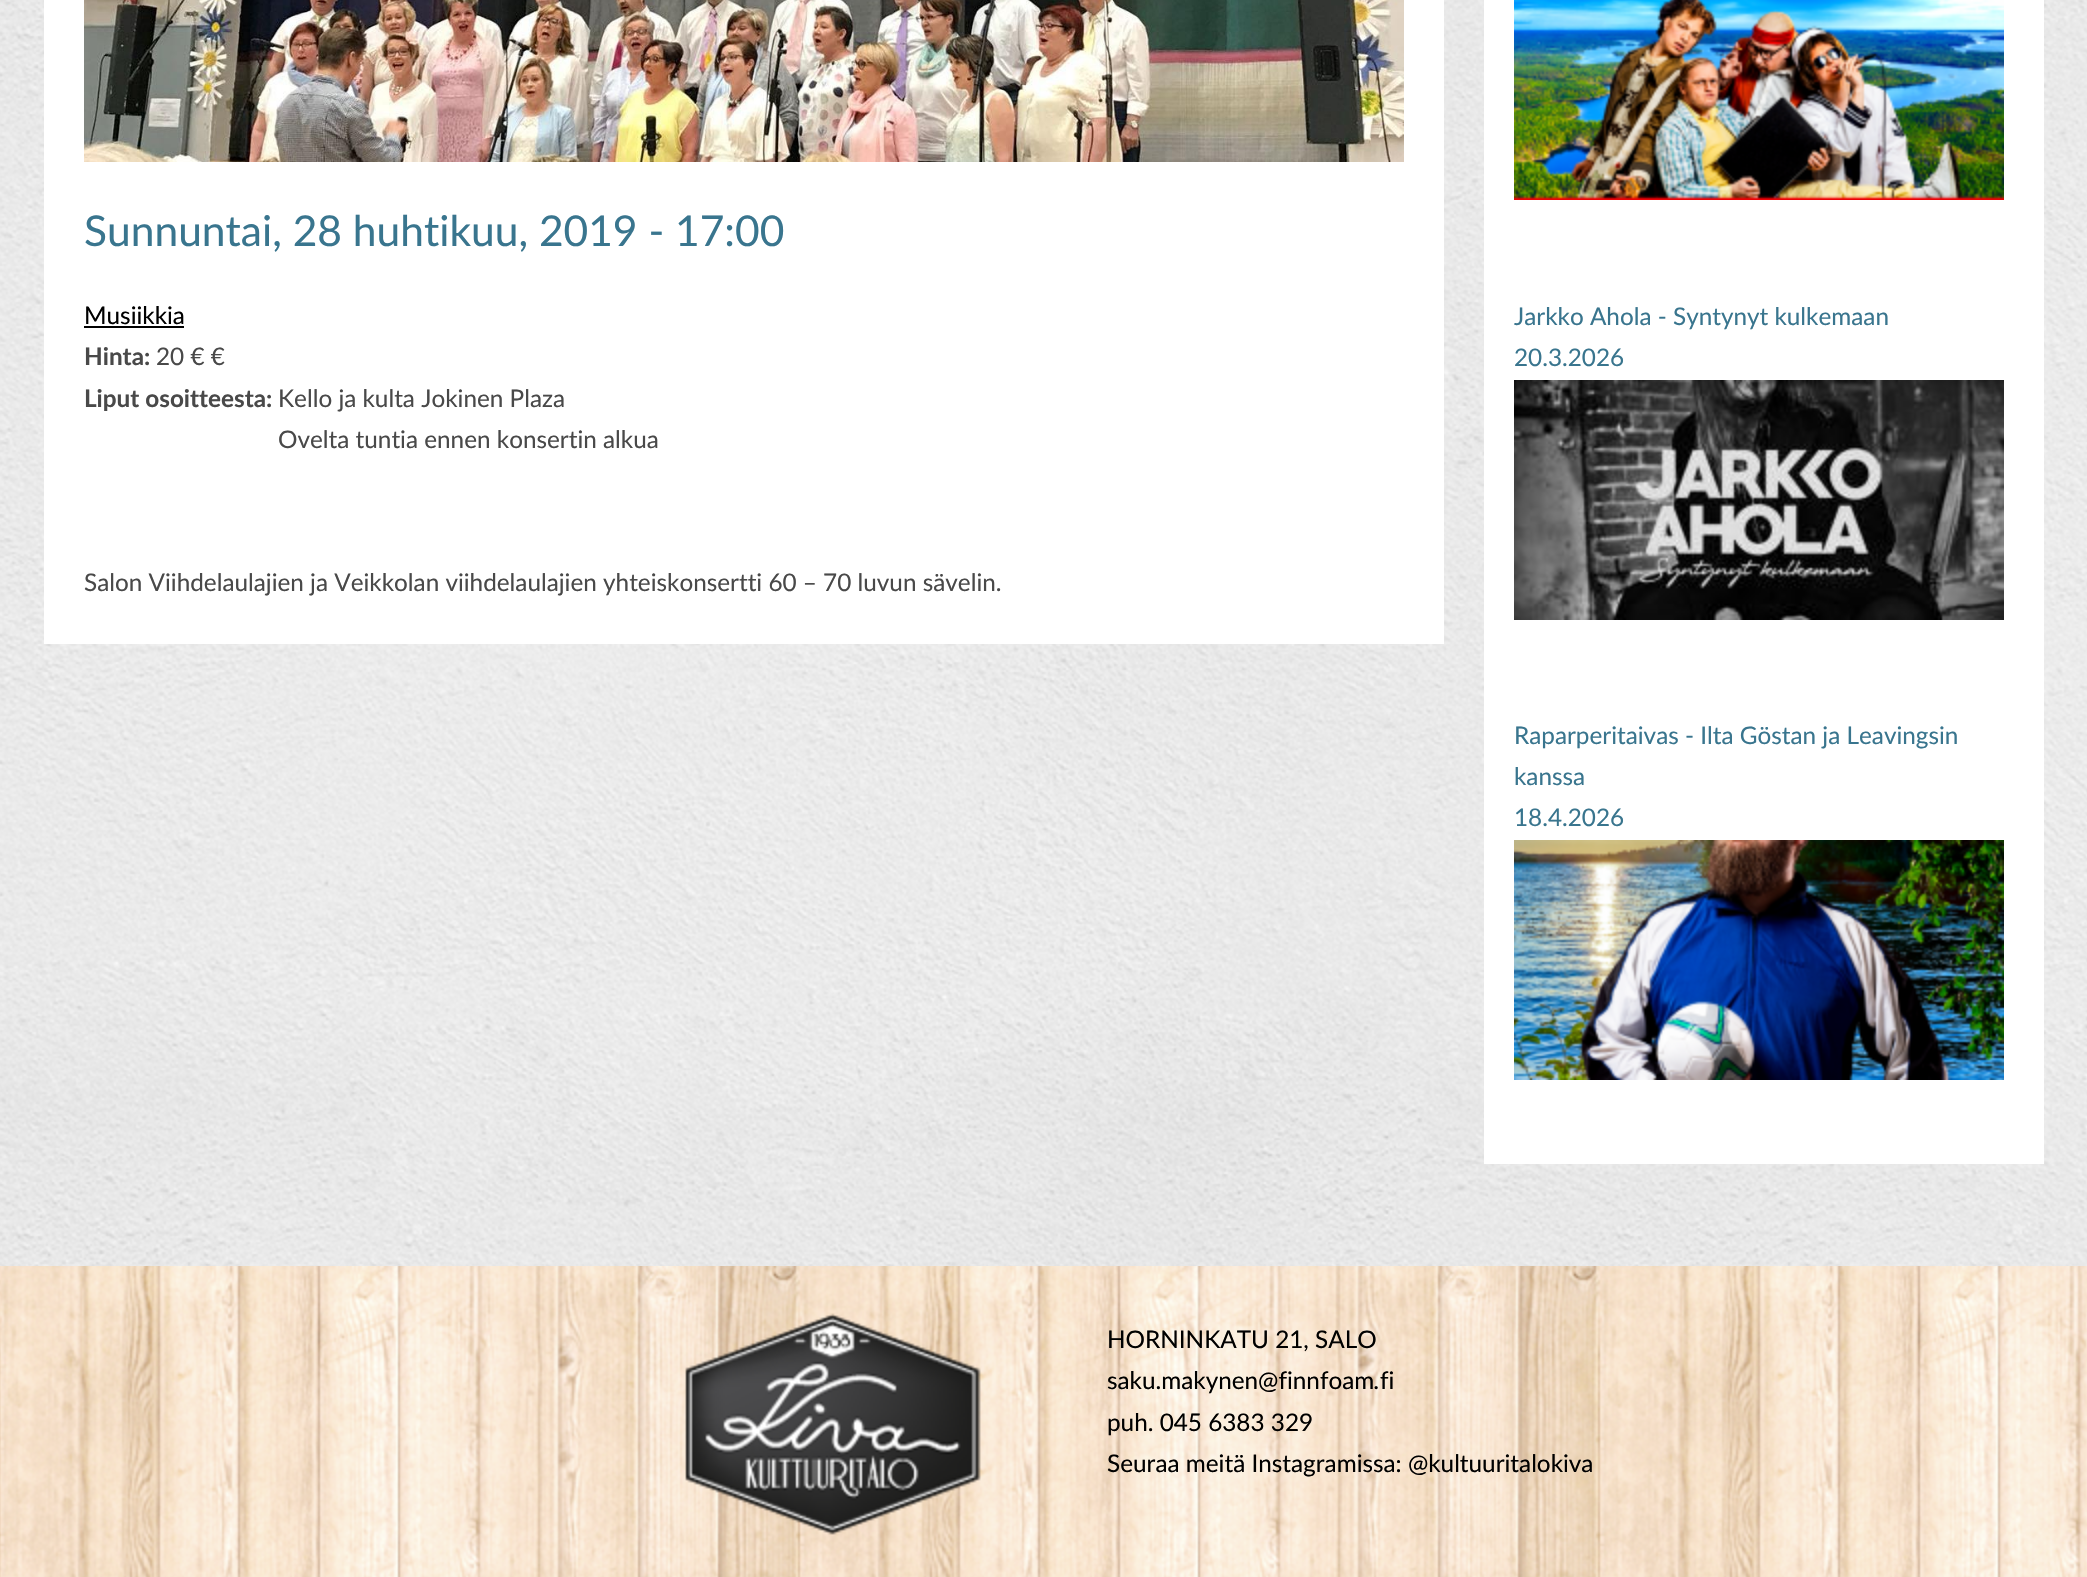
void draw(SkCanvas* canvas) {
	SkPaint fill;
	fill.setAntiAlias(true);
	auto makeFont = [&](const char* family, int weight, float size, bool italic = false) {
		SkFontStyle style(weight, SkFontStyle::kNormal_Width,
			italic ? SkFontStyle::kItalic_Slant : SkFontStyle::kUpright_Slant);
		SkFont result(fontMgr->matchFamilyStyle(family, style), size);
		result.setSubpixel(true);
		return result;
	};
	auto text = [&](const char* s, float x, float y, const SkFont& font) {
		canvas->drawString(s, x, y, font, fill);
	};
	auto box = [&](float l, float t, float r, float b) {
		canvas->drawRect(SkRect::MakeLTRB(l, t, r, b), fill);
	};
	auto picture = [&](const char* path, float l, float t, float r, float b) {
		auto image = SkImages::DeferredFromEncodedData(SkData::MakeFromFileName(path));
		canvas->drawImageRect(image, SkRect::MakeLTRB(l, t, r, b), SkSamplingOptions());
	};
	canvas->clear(0xFFFFFFFF);
	picture("image0.png", 0, 0, 2087, 1266);
	fill.setColor(0xFFFFFFFF);
	box(44, 0, 1444, 644);
	picture("image1.png", 84, 0, 1404, 162);
	fill.setColor(0xFF000000);
	box(84, 326, 184, 328);
	fill.setColor(0xFFFFFFFF);
	box(1484, 0, 2044, 1164);
	picture("image2.png", 1514, 0, 2004, 200);
	picture("image3.png", 1514, 380, 2004, 620);
	picture("image4.png", 1514, 840, 2004, 1080);
	picture("image5.png", 0, 1266, 2087, 1577);
	picture("image6.png", 685, 1313, 981, 1535);
	auto font1 = makeFont("Lato", 400, 42.5f);
	fill.setColor(0xFF39758E);
	text("Sunnuntai, 28 huhtikuu, 2019 - 17:00", 84, 246, font1);
	auto font2 = makeFont("Lato", 400, 24.3f);
	fill.setColor(0xFF000000);
	text("Musiikkia", 84, 324, font2);
	auto font3 = makeFont("Lato", 700, 24.3f);
	fill.setColor(0xFF494949);
	text("Hinta:", 84, 365, font3);
	text("20 € €", 156, 365, font2);
	text("Liput osoitteesta:", 84, 407, font3);
	text("Kello ja kulta Jokinen Plaza", 278, 407, font2);
	text("Ovelta tuntia ennen konsertin alkua", 278, 448, font2);
	text("Salon Viihdelaulajien ja Veikkolan viihdelaulajien yhteiskonsertti 60 – 70 luvun sävelin.", 84, 591, font2);
	fill.setColor(0xFF39758E);
	text("Jarkko Ahola - Syntynyt kulkemaan", 1514, 325, font2);
	text("20.3.2026", 1514, 366, font2);
	text("Raparperitaivas - Ilta Göstan ja Leavingsin", 1514, 744, font2);
	text("kanssa", 1514, 785, font2);
	text("18.4.2026", 1514, 826, font2);
	fill.setColor(0xFF000000);
	text("HORNINKATU 21, SALO", 1107, 1348, font2);
	text("saku.makynen@finnfoam", 1107, 1389, font2);
	auto font4 = makeFont("Lato", 400, 24.3f, true);
	text(".", 1374, 1389, font4);
	text("fi", 1380, 1389, font2);
	text("puh. 045 6383 329", 1107, 1431, font2);
	text("Seuraa meitä Instagramissa: @kultuuritalokiva", 1107, 1472, font2);
}
